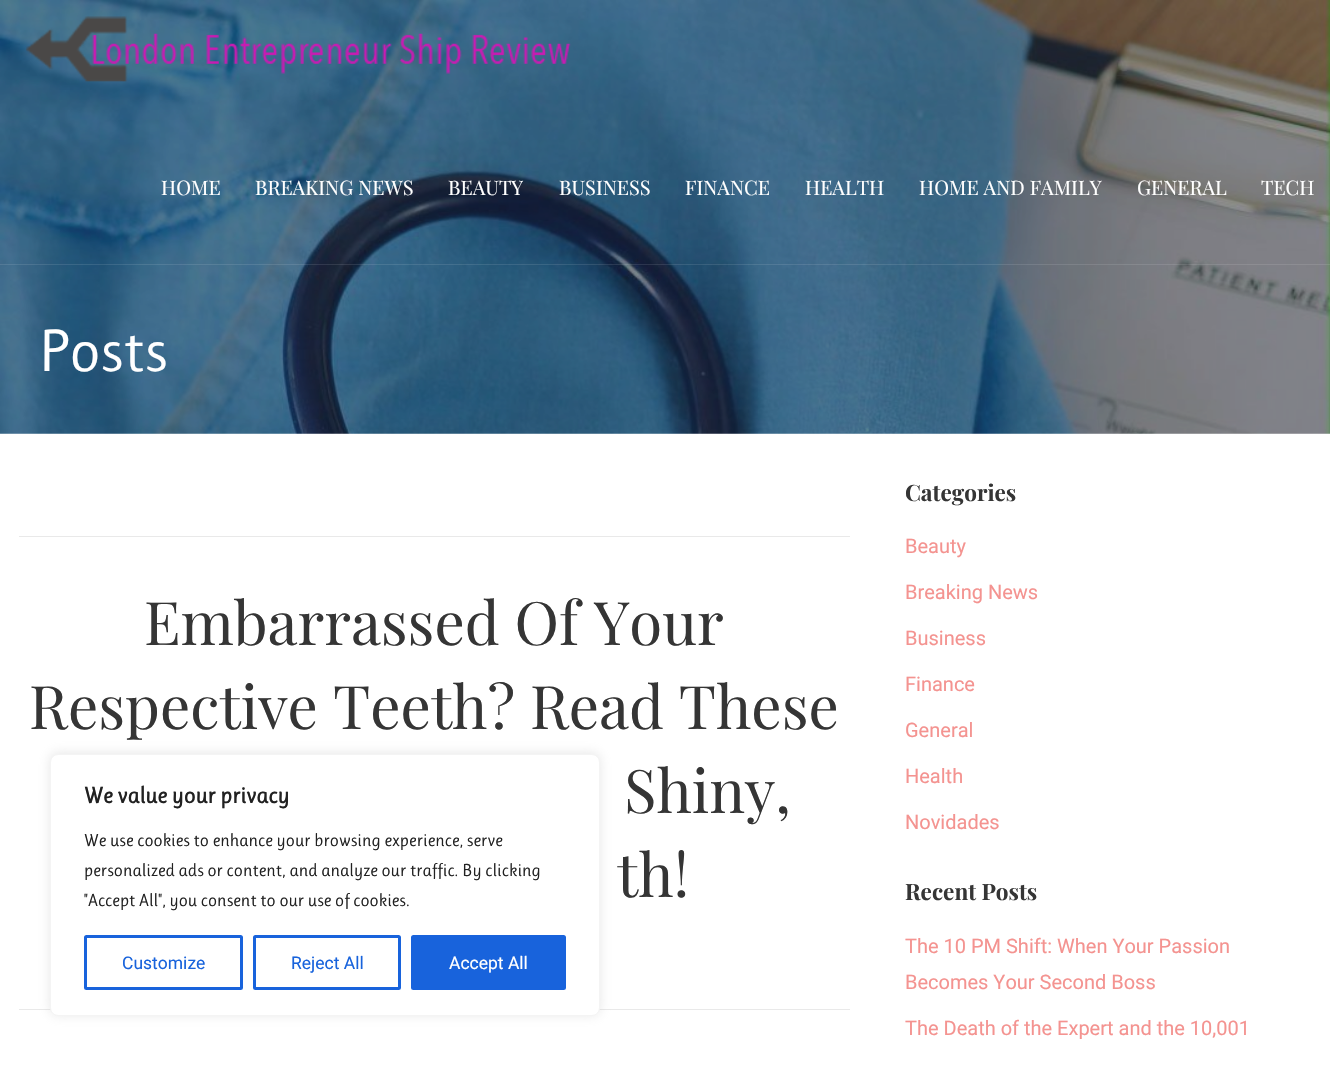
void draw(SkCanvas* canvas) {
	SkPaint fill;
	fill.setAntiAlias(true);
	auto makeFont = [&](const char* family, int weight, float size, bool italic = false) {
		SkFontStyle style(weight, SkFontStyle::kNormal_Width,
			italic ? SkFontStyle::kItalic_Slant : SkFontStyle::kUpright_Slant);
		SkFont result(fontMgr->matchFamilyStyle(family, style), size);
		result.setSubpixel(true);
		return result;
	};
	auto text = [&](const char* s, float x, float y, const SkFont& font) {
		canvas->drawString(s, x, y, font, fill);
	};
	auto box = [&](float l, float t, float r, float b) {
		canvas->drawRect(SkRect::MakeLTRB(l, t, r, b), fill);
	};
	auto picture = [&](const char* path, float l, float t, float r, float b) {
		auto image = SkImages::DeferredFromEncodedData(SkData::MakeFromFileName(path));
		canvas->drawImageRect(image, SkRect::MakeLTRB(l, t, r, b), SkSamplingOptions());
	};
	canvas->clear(0xFFFFFFFF);
	picture("image0.png", 0, 0, 1330, 434);
	fill.setColor(0x1AFFFFFF);
	box(0, 264, 1330, 265);
	picture("image1.png", 26, 16, 571, 82);
	fill.setColor(0xFFE9E9E9);
	box(19, 536, 850, 537);
	box(19, 1009, 850, 1010);
	fill.setColor(0x4DACABAB);
	fill.setMaskFilter(SkMaskFilter::MakeBlur(kNormal_SkBlurStyle, 6));
	canvas->drawRoundRect(SkRect::MakeLTRB(50, 753, 600, 1015), 8, 8, fill);
	fill.setMaskFilter(nullptr);
	fill.setColor(0xFFFFFFFF);
	canvas->drawRoundRect(SkRect::MakeLTRB(50.5f, 754.5f, 599.5f, 1015.5f), 7.5f, 7.5f, fill);
	fill.setStyle(SkPaint::kStroke_Style);
	fill.setStrokeWidth(1);
	fill.setColor(0xFFF4F4F4);
	canvas->drawRoundRect(SkRect::MakeLTRB(50.5f, 754.5f, 599.5f, 1015.5f), 7.5f, 7.5f, fill);
	fill.setStrokeWidth(3);
	fill.setColor(0xFF1863DC);
	canvas->drawRoundRect(SkRect::MakeLTRB(85.5f, 936.5f, 241.5f, 988.5f), 1, 1, fill);
	canvas->drawRoundRect(SkRect::MakeLTRB(254.5f, 936.5f, 399.5f, 988.5f), 1, 1, fill);
	fill.setStyle(SkPaint::kFill_Style);
	canvas->drawRoundRect(SkRect::MakeLTRB(412.5f, 936.5f, 564.5f, 988.5f), 1, 1, fill);
	fill.setStyle(SkPaint::kStroke_Style);
	canvas->drawRoundRect(SkRect::MakeLTRB(412.5f, 936.5f, 564.5f, 988.5f), 1, 1, fill);
	auto font1 = makeFont("Playfair Display", 400, 20);
	fill.setStyle(SkPaint::kFill_Style);
	fill.setColor(0xFFFFFFFF);
	text("HOME", 161, 195, font1);
	text("BREAKING NEWS", 255, 195, font1);
	text("BEAUTY", 448, 195, font1);
	text("BUSINESS", 559, 195, font1);
	text("FINANCE", 685, 195, font1);
	text("HEALTH", 805, 195, font1);
	text("HOME AND FAMILY", 919, 195, font1);
	text("GENERAL", 1137, 195, font1);
	text("TECH", 1261, 195, font1);
	auto font2 = makeFont("Ruluko", 400, 60);
	text("Posts", 38, 371, font2);
	auto font3 = makeFont("Playfair Display", 400, 60);
	fill.setColor(0xFF353535);
	text("Embarrassed Of Your", 144, 645, font3);
	text("Respective Teeth? Read These", 29, 729, font3);
	text("Shiny,", 624, 813, font3);
	text("th!", 617, 897, font3);
	auto font4 = makeFont("Playfair Display", 700, 22.5f);
	text("Categories", 905, 501, font4);
	auto font5 = makeFont("Roboto", 400, 20);
	fill.setColor(0xFFF49390);
	text("Beauty", 905, 553, font5);
	text("Breaking News", 905, 599, font5);
	text("Business", 905, 645, font5);
	text("Finance", 905, 691, font5);
	text("General", 905, 737, font5);
	text("Health", 905, 783, font5);
	text("Novidades", 905, 829, font5);
	fill.setColor(0xFF353535);
	text("Recent Posts", 905, 900, font4);
	fill.setColor(0xFFF49390);
	text("The 10 PM Shift: When Your Passion", 905, 953, font5);
	text("Becomes Your Second Boss", 905, 989, font5);
	text("The Death of the Expert and the 10,001", 905, 1035, font5);
	auto font6 = makeFont("Ruluko", 700, 22.5f);
	fill.setColor(0xFF212121);
	text("We value your privacy", 84, 803, font6);
	auto font7 = makeFont("Ruluko", 400, 17.5f);
	text("We use cookies to enhance your browsing experience, serve", 84, 846, font7);
	text("personalized ads or content, and analyze our traffic. By clicking", 84, 876, font7);
	text("\"Accept All\", you consent to our use of cookies.", 84, 906, font7);
	auto font8 = makeFont("Roboto", 400, 17.5f);
	fill.setColor(0xFF1863DC);
	text("Customize", 122, 969, font8);
	text("Reject All", 291, 969, font8);
	fill.setColor(0xFFFFFFFF);
	text("Accept All", 449, 969, font8);
}
